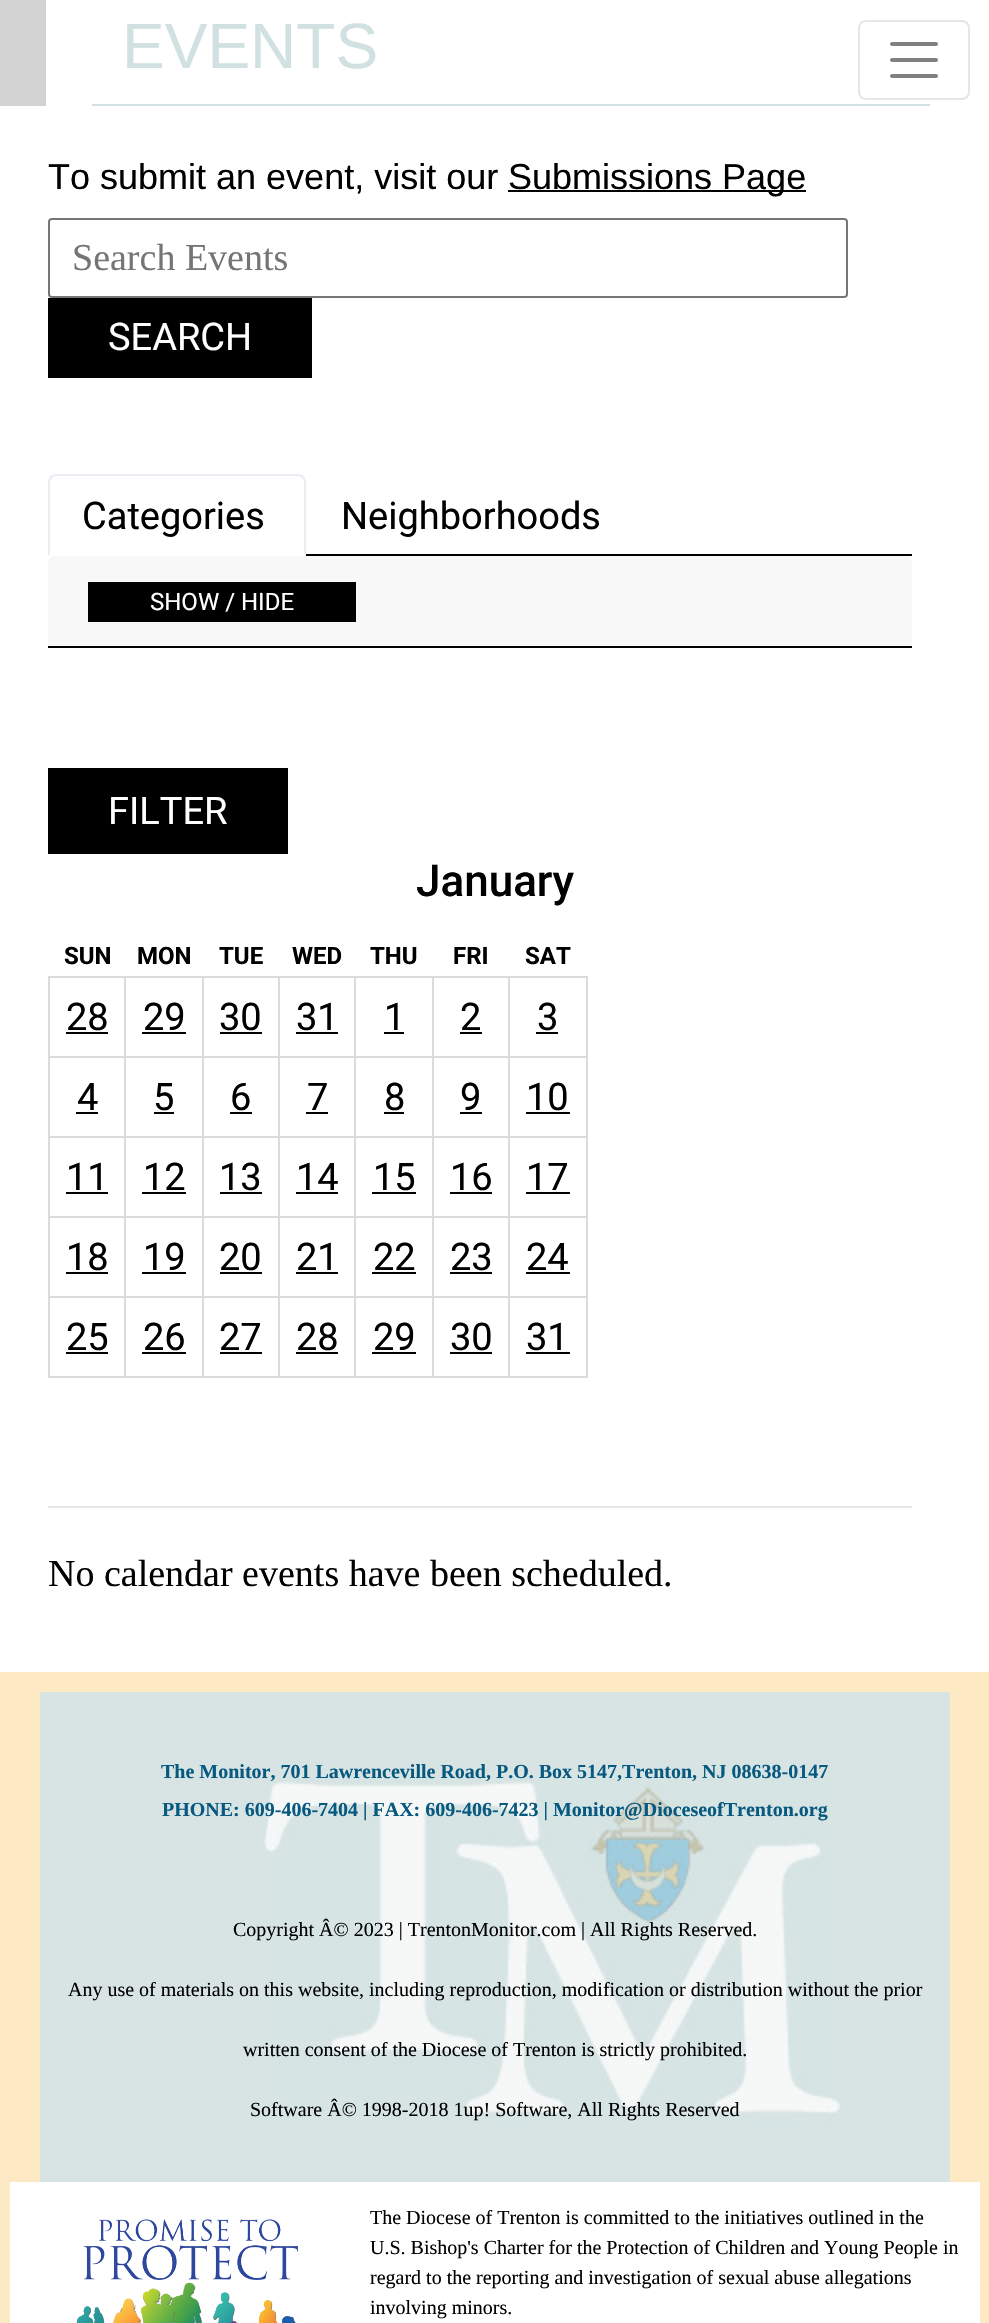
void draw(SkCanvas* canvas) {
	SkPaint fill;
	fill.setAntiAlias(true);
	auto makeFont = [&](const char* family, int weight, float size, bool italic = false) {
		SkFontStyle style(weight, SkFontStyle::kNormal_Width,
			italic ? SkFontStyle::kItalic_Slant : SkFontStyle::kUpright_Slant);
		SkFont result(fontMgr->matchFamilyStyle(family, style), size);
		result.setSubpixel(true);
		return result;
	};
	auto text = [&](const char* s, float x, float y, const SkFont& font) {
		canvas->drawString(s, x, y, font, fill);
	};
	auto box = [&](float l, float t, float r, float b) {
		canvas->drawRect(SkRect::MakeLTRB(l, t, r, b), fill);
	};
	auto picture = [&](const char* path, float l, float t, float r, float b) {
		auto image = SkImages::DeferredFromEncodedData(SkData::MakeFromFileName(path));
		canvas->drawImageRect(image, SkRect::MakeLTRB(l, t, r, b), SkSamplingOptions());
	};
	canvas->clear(0xFFD3D3D3);
	fill.setColor(0xFFFFFFFF);
	box(46, 0, 989, 106);
	fill.setStyle(SkPaint::kStroke_Style);
	fill.setStrokeWidth(2);
	fill.setColor(0xFFE6E6E6);
	canvas->drawRoundRect(SkRect::MakeLTRB(859, 21, 969, 99), 7, 7, fill);
	fill.setStrokeWidth(4);
	fill.setStrokeCap(SkPaint::kRound_Cap);
	fill.setColor(0xFF808080);
	canvas->drawPath(SkPathBuilder().moveTo(892, 44).lineTo(936, 44).moveTo(892, 60).lineTo(936, 60).moveTo(892, 76).lineTo(936, 76).detach(), fill);
	fill.setStyle(SkPaint::kFill_Style);
	fill.setColor(0xFFD1E1E1);
	box(92, 104, 930, 106);
	fill.setColor(0xFFFFFFFF);
	box(0, 106, 989, 1672);
	fill.setColor(0xFF000000);
	box(508, 190, 806, 192);
	fill.setStyle(SkPaint::kStroke_Style);
	fill.setStrokeWidth(2);
	fill.setStrokeCap(SkPaint::kButt_Cap);
	fill.setColor(0xFF767676);
	canvas->drawRoundRect(SkRect::MakeLTRB(49, 219, 847, 297), 3, 3, fill);
	fill.setStyle(SkPaint::kFill_Style);
	fill.setColor(0xFF000000);
	box(48, 298, 312, 378);
	box(306, 554, 912, 556);
	fill.setColor(0xFFEBEDF2);
	canvas->drawPath(SkPathBuilder().moveTo(56, 474).cubicTo(54, 474, 52, 475, 50, 476).lineTo(52, 478).cubicTo(53, 477, 54, 476, 56, 476).lineTo(298, 476).cubicTo(300, 476, 301, 477, 302, 478).lineTo(304, 476).cubicTo(302, 475, 300, 474, 298, 474).close().detach(), fill);
	canvas->drawPath(SkPathBuilder().moveTo(306, 556).lineTo(306, 482).cubicTo(306, 480, 305, 478, 304, 476).lineTo(302, 478).lineTo(304, 481).lineTo(304, 554).close().detach(), fill);
	fill.setColor(0xFFFFFFFF);
	canvas->drawPath(SkPathBuilder().moveTo(306, 556).lineTo(304, 554).lineTo(50, 554).lineTo(48, 556).close().detach(), fill);
	fill.setColor(0xFFEBEDF2);
	canvas->drawPath(SkPathBuilder().moveTo(48, 556).lineTo(50, 554).lineTo(50, 481).lineTo(52, 478).lineTo(50, 476).cubicTo(49, 478, 48, 480, 48, 482).close().detach(), fill);
	fill.setColor(0xFFF8F8F8);
	canvas->drawPath(SkPathBuilder().moveTo(54, 556).lineTo(906, 556).cubicTo(909.5f, 556, 912, 558.5f, 912, 562).lineTo(912, 648).lineTo(48, 648).lineTo(48, 562).cubicTo(48, 558.5f, 50.5f, 556, 54, 556).close().detach(), fill);
	fill.setColor(0xFF000000);
	box(48, 646, 912, 648);
	box(88, 582, 356, 622);
	box(48, 768, 288, 854);
	fill.setColor(0xFFDBDBDB);
	box(508, 976, 588, 978);
	box(508, 1056, 588, 1058);
	box(508, 1136, 588, 1138);
	box(508, 1216, 588, 1218);
	box(508, 1296, 588, 1298);
	box(586, 1296, 588, 1378);
	box(508, 1376, 588, 1378);
	box(508, 1296, 510, 1378);
	box(432, 1296, 510, 1298);
	box(508, 1216, 510, 1298);
	box(432, 1216, 510, 1218);
	box(508, 1136, 510, 1218);
	box(432, 1136, 510, 1138);
	box(508, 1056, 510, 1138);
	box(432, 1056, 510, 1058);
	box(508, 976, 510, 1058);
	box(432, 976, 510, 978);
	box(432, 1376, 510, 1378);
	box(432, 1296, 434, 1378);
	box(354, 1296, 434, 1298);
	box(432, 1216, 434, 1298);
	box(354, 1216, 434, 1218);
	box(432, 1136, 434, 1218);
	box(354, 1136, 434, 1138);
	box(432, 1056, 434, 1138);
	box(354, 1056, 434, 1058);
	box(432, 976, 434, 1058);
	box(354, 976, 434, 978);
	box(354, 1376, 434, 1378);
	box(354, 1296, 356, 1378);
	box(278, 1296, 356, 1298);
	box(354, 1216, 356, 1298);
	box(278, 1216, 356, 1218);
	box(354, 1136, 356, 1218);
	box(278, 1136, 356, 1138);
	box(354, 1056, 356, 1138);
	box(278, 1056, 356, 1058);
	box(354, 976, 356, 1058);
	box(278, 976, 356, 978);
	box(278, 1376, 356, 1378);
	box(278, 1296, 280, 1378);
	box(202, 1296, 280, 1298);
	box(278, 1216, 280, 1298);
	box(202, 1216, 280, 1218);
	box(278, 1136, 280, 1218);
	box(202, 1136, 280, 1138);
	box(278, 1056, 280, 1138);
	box(202, 1056, 280, 1058);
	box(278, 976, 280, 1058);
	box(202, 976, 280, 978);
	box(202, 1376, 280, 1378);
	box(202, 1296, 204, 1378);
	box(124, 1296, 204, 1298);
	box(202, 1216, 204, 1298);
	box(124, 1216, 204, 1218);
	box(202, 1136, 204, 1218);
	box(124, 1136, 204, 1138);
	box(202, 1056, 204, 1138);
	box(124, 1056, 204, 1058);
	box(202, 976, 204, 1058);
	box(124, 976, 204, 978);
	box(124, 1376, 204, 1378);
	box(124, 1296, 126, 1378);
	box(48, 1296, 126, 1298);
	box(124, 1216, 126, 1298);
	box(48, 1216, 126, 1218);
	box(124, 1136, 126, 1218);
	box(48, 1136, 126, 1138);
	box(124, 1056, 126, 1138);
	box(48, 1056, 126, 1058);
	box(124, 976, 126, 1058);
	box(48, 976, 126, 978);
	box(48, 1376, 126, 1378);
	box(48, 1296, 50, 1378);
	box(48, 1216, 50, 1298);
	box(48, 1136, 50, 1218);
	box(48, 1056, 50, 1138);
	box(48, 976, 50, 1058);
	fill.setColor(0xFF000000);
	box(66, 1032, 108, 1034);
	box(142, 1032, 186, 1034);
	box(220, 1032, 262, 1034);
	box(296, 1032, 338, 1034);
	box(384, 1032, 404, 1034);
	box(460, 1032, 482, 1034);
	fill.setColor(0xFFDBDBDB);
	box(586, 1216, 588, 1298);
	box(586, 1136, 588, 1218);
	box(586, 1056, 588, 1138);
	box(586, 976, 588, 1058);
	fill.setColor(0xFF000000);
	box(536, 1032, 558, 1034);
	box(76, 1112, 98, 1114);
	box(154, 1112, 174, 1114);
	box(230, 1112, 252, 1114);
	box(306, 1112, 328, 1114);
	box(384, 1112, 404, 1114);
	box(460, 1112, 482, 1114);
	box(526, 1112, 570, 1114);
	box(66, 1192, 108, 1194);
	box(142, 1192, 186, 1194);
	box(220, 1192, 262, 1194);
	box(296, 1192, 338, 1194);
	box(372, 1192, 416, 1194);
	box(450, 1192, 492, 1194);
	box(526, 1192, 570, 1194);
	box(66, 1272, 108, 1274);
	box(142, 1272, 186, 1274);
	box(220, 1272, 262, 1274);
	box(296, 1272, 338, 1274);
	box(372, 1272, 416, 1274);
	box(450, 1272, 492, 1274);
	box(526, 1272, 570, 1274);
	box(66, 1352, 108, 1354);
	box(142, 1352, 186, 1354);
	box(220, 1352, 262, 1354);
	box(296, 1352, 338, 1354);
	box(372, 1352, 416, 1354);
	box(450, 1352, 492, 1354);
	box(526, 1352, 570, 1354);
	fill.setColor(0xFFE6E6E6);
	box(48, 1506, 912, 1508);
	fill.setColor(0xFFFDEAC5);
	box(0, 1672, 989, 2323);
	fill.setColor(0xFFD8E4E4);
	box(40, 1692, 950, 2182);
	picture("image0.png", 264, 1776, 840, 2124);
	fill.setColor(0xFFFFFFFF);
	box(10, 2182, 980, 2323);
	picture("image1.png", 76, 2219, 298, 2323);
	auto font1 = makeFont("Liberation Sans", 400, 64);
	fill.setColor(0xFFD1E1E1);
	text("EVENTS", 122, 68, font1);
	auto font2 = makeFont("Liberation Sans", 400, 36);
	fill.setColor(0xFF000000);
	text("To submit an event, visit our", 48, 189, font2);
	text("Submissions Page", 508, 189, font2);
	auto font3 = makeFont("Liberation Serif", 400, 38);
	fill.setColor(0xFF757575);
	text("Search Events", 72, 270, font3);
	auto font4 = makeFont("Roboto", 400, 38);
	fill.setColor(0xFFFFFFFF);
	text("SEARCH", 108, 350, font4);
	fill.setColor(0xFF000000);
	text("Categories", 82, 529, font4);
	text("Neighborhoods", 341, 529, font4);
	auto font5 = makeFont("Roboto", 400, 24);
	fill.setColor(0xFFFFFFFF);
	text("SHOW / HIDE", 150, 610, font5);
	text("FILTER", 108, 824, font4);
	auto font6 = makeFont("Roboto", 500, 44);
	fill.setColor(0xFF000000);
	text("January", 416, 896, font6);
	auto font7 = makeFont("Roboto", 700, 24);
	text("SUN", 64, 964, font7);
	text("MON", 137, 964, font7);
	text("TUE", 219, 964, font7);
	text("WED", 292, 964, font7);
	text("THU", 370, 964, font7);
	text("FRI", 453, 964, font7);
	text("SAT", 525, 964, font7);
	text("28", 66, 1030, font4);
	text("29", 143, 1030, font4);
	text("30", 219, 1030, font4);
	text("31", 296, 1030, font4);
	text("1", 384, 1030, font4);
	text("2", 460, 1030, font4);
	text("3", 537, 1030, font4);
	text("4", 77, 1110, font4);
	text("5", 153, 1110, font4);
	text("6", 230, 1110, font4);
	text("7", 307, 1110, font4);
	text("8", 384, 1110, font4);
	text("9", 460, 1110, font4);
	text("10", 526, 1110, font4);
	text("11", 66, 1190, font4);
	text("12", 143, 1190, font4);
	text("13", 219, 1190, font4);
	text("14", 296, 1190, font4);
	text("15", 373, 1190, font4);
	text("16", 450, 1190, font4);
	text("17", 526, 1190, font4);
	text("18", 66, 1270, font4);
	text("19", 143, 1270, font4);
	text("20", 219, 1270, font4);
	text("21", 296, 1270, font4);
	text("22", 373, 1270, font4);
	text("23", 450, 1270, font4);
	text("24", 526, 1270, font4);
	text("25", 66, 1350, font4);
	text("26", 143, 1350, font4);
	text("27", 219, 1350, font4);
	text("28", 296, 1350, font4);
	text("29", 373, 1350, font4);
	text("30", 450, 1350, font4);
	text("31", 526, 1350, font4);
	text("No calendar events have been scheduled.", 48, 1586, font3);
	auto font8 = makeFont("Liberation Serif", 700, 20);
	fill.setColor(0xFF07597F);
	text("The Monitor, 701 Lawrenceville Road, P.O. Box 5147,Trenton, NJ 08638-0147", 161, 1778, font8);
	text("PHONE: 609-406-7404 | FAX: 609-406-7423 | Monitor@DioceseofTrenton.org", 162, 1816, font8);
	auto font9 = makeFont("Liberation Serif", 400, 20);
	fill.setColor(0xFF000000);
	text("Copyright Â© 2023 | TrentonMonitor.com | All Rights Reserved.", 233, 1936, font9);
	text("Any use of materials on this website, including reproduction, modification or distribution without the prior", 68, 1996, font9);
	text("written consent of the Diocese of Trenton is strictly prohibited.", 243, 2056, font9);
	text("Software Â© 1998-2018 1up! Software, All Rights Reserved", 250, 2116, font9);
	text("The Diocese of Trenton is committed to the initiatives outlined in the", 370, 2224, font9);
	text("U.S. Bishop's Charter for the Protection of Children and Young People in", 370, 2254, font9);
	text("regard to the reporting and investigation of sexual abuse allegations", 370, 2284, font9);
	text("involving minors.", 370, 2314, font9);
}
